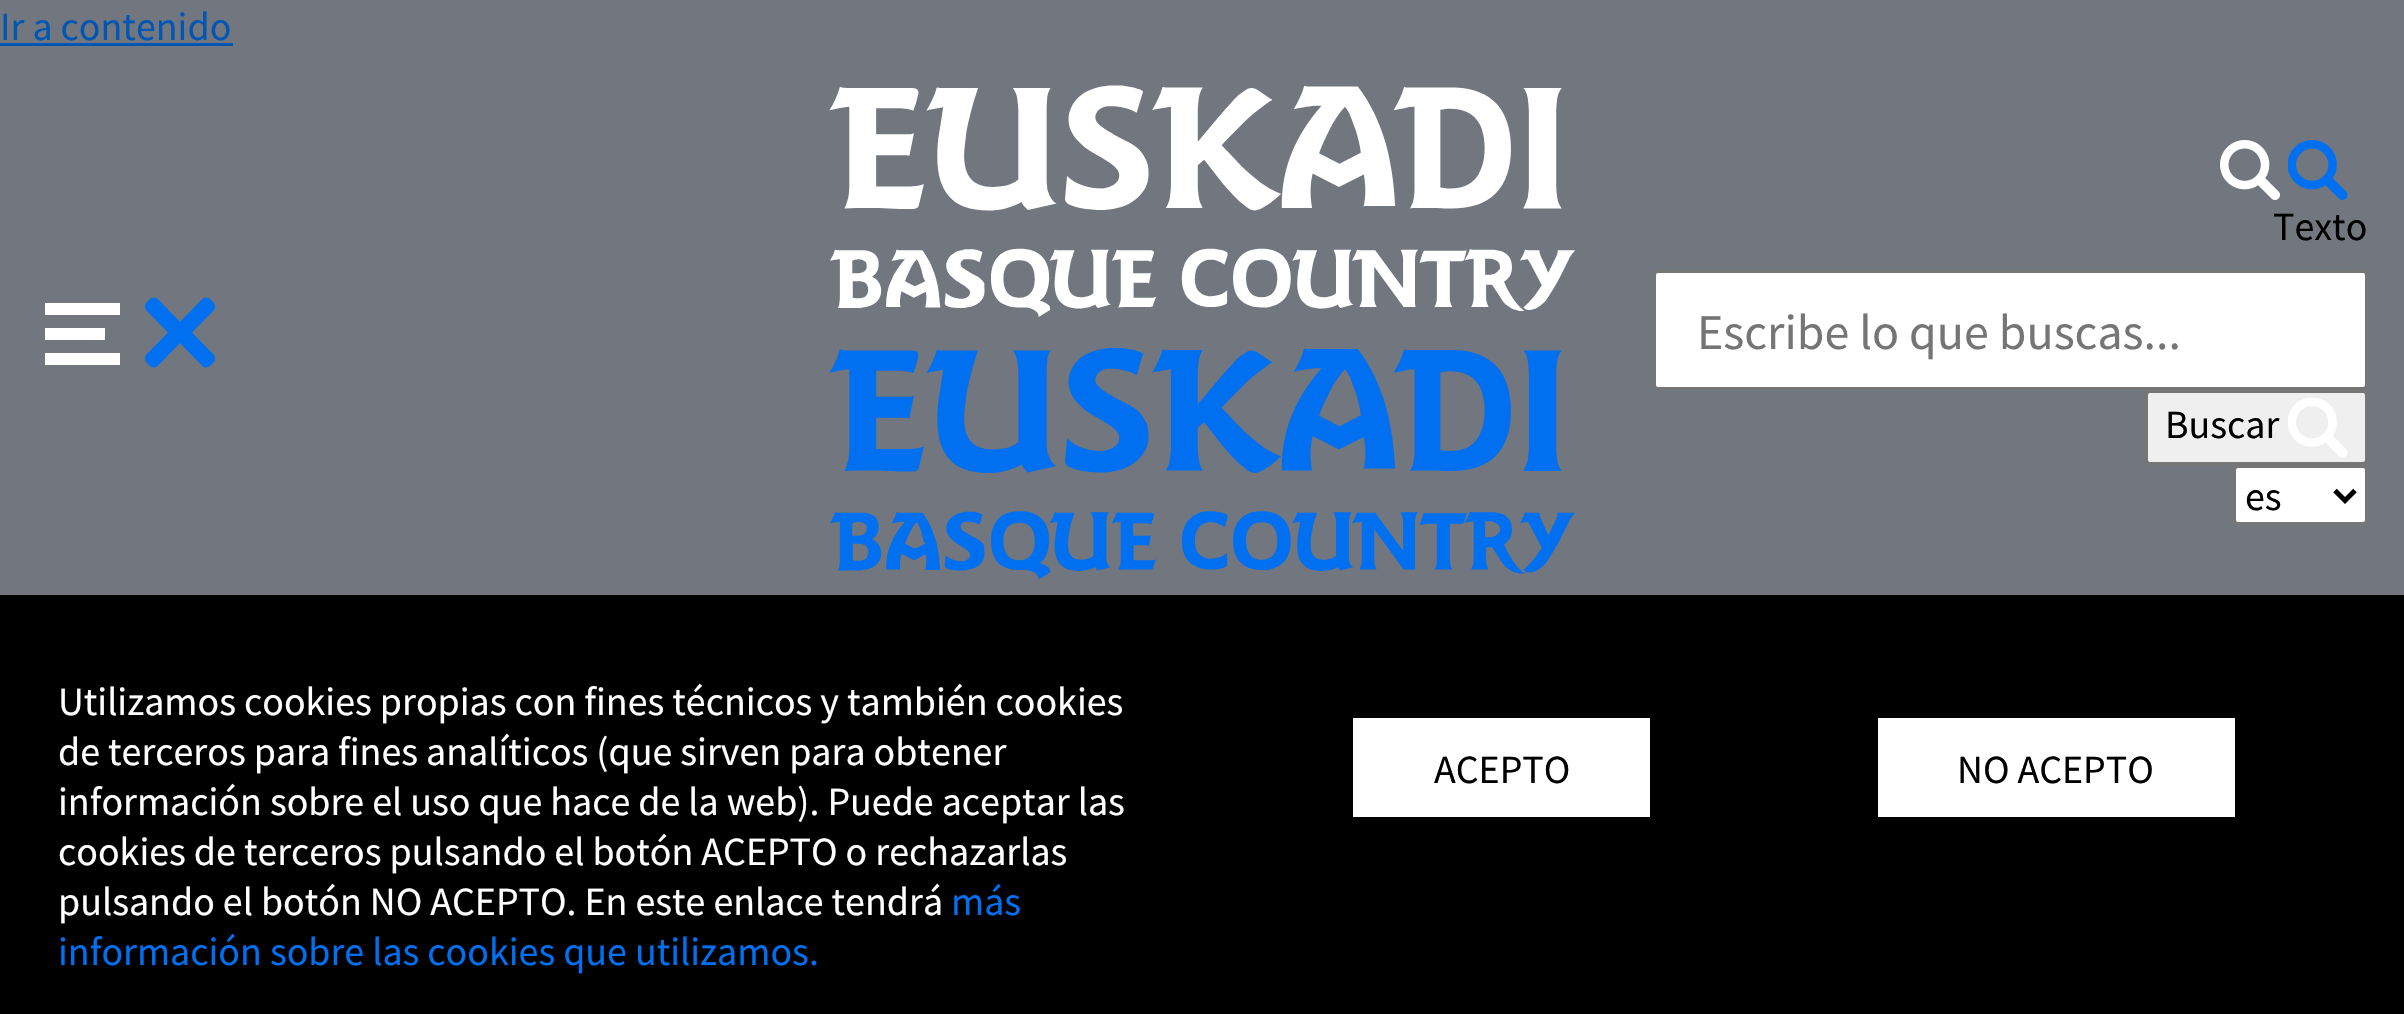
void draw(SkCanvas* canvas) {
	SkPaint fill;
	fill.setAntiAlias(true);
	auto makeFont = [&](const char* family, int weight, float size, bool italic = false) {
		SkFontStyle style(weight, SkFontStyle::kNormal_Width,
			italic ? SkFontStyle::kItalic_Slant : SkFontStyle::kUpright_Slant);
		SkFont result(fontMgr->matchFamilyStyle(family, style), size);
		result.setSubpixel(true);
		return result;
	};
	auto text = [&](const char* s, float x, float y, const SkFont& font) {
		canvas->drawString(s, x, y, font, fill);
	};
	auto box = [&](float l, float t, float r, float b) {
		canvas->drawRect(SkRect::MakeLTRB(l, t, r, b), fill);
	};
	auto picture = [&](const char* path, float l, float t, float r, float b) {
		auto image = SkImages::DeferredFromEncodedData(SkData::MakeFromFileName(path));
		canvas->drawImageRect(image, SkRect::MakeLTRB(l, t, r, b), SkSamplingOptions());
	};
	canvas->clear(0xFF72767E);
	fill.setColor(0xFF0056B3);
	box(0, 43, 233, 46);
	fill.setColor(0xFFFFFFFF);
	box(45, 303, 120, 315);
	picture("image0.png", 145, 297, 215, 368);
	box(45, 328, 105, 340);
	box(45, 353, 120, 365);
	picture("image1.png", 829, 85, 1575, 317);
	picture("image2.png", 829, 348, 1575, 580);
	picture("image3.png", 2220, 140, 2280, 200);
	picture("image4.png", 2288, 140, 2348, 200);
	canvas->drawRoundRect(SkRect::MakeLTRB(1654.5f, 271.5f, 2366.5f, 388.5f), 3.5f, 3.5f, fill);
	fill.setStyle(SkPaint::kStroke_Style);
	fill.setStrokeWidth(3);
	fill.setColor(0xFF767676);
	canvas->drawRoundRect(SkRect::MakeLTRB(1654.5f, 271.5f, 2366.5f, 388.5f), 3.5f, 3.5f, fill);
	fill.setStyle(SkPaint::kFill_Style);
	fill.setColor(0xFFEFEFEF);
	canvas->drawRoundRect(SkRect::MakeLTRB(2146.5f, 391.5f, 2366.5f, 463.5f), 3.5f, 3.5f, fill);
	fill.setStyle(SkPaint::kStroke_Style);
	fill.setColor(0xFF767676);
	canvas->drawRoundRect(SkRect::MakeLTRB(2146.5f, 391.5f, 2366.5f, 463.5f), 3.5f, 3.5f, fill);
	picture("image5.png", 2288, 398, 2348, 458);
	fill.setStyle(SkPaint::kFill_Style);
	fill.setColor(0xFFFFFFFF);
	canvas->drawRoundRect(SkRect::MakeLTRB(2234.5f, 466.5f, 2366.5f, 523.5f), 3.5f, 3.5f, fill);
	fill.setStyle(SkPaint::kStroke_Style);
	fill.setColor(0xFF767676);
	canvas->drawRoundRect(SkRect::MakeLTRB(2234.5f, 466.5f, 2366.5f, 523.5f), 3.5f, 3.5f, fill);
	fill.setStrokeWidth(5);
	fill.setColor(0xFF000000);
	canvas->drawPath(SkPathBuilder().moveTo(2335, 490.5f).lineTo(2345, 500.5f).lineTo(2355, 490.5f).detach(), fill);
	fill.setStyle(SkPaint::kFill_Style);
	box(0, 595, 2404, 1014);
	fill.setColor(0xFFFFFFFF);
	box(1353, 718, 1650, 817);
	box(1878, 718, 2235, 817);
	auto font1 = makeFont("Source Sans Pro", 400, 40);
	fill.setColor(0xFF0056B3);
	text("Ir a contenido", 0, 40, font1);
	fill.setColor(0xFF000000);
	text("Texto", 2273, 240, font1);
	auto font2 = makeFont("Source Sans Pro", 400, 50);
	fill.setColor(0xFF757575);
	text("Escribe lo que buscas...", 1697, 349, font2);
	fill.setColor(0xFF000000);
	text("Buscar", 2165, 438, font1);
	text("es", 2245, 510, font1);
	fill.setColor(0xFFFFFFFF);
	text("Utilizamos cookies propias con fines técnicos y también cookies", 58, 715, font1);
	text("de terceros para fines analíticos (que sirven para obtener", 58, 765, font1);
	text("información sobre el uso que hace de la web). Puede aceptar las", 58, 815, font1);
	text("cookies de terceros pulsando el botón ACEPTO o rechazarlas", 58, 865, font1);
	text("pulsando el botón NO ACEPTO. En este enlace tendrá", 58, 915, font1);
	fill.setColor(0xFF006FF0);
	text("más", 951, 915, font1);
	text("información sobre las cookies que utilizamos.", 58, 965, font1);
	fill.setColor(0xFF000000);
	text("ACEPTO", 1434, 783, font1);
	text("NO ACEPTO", 1957, 783, font1);
}
